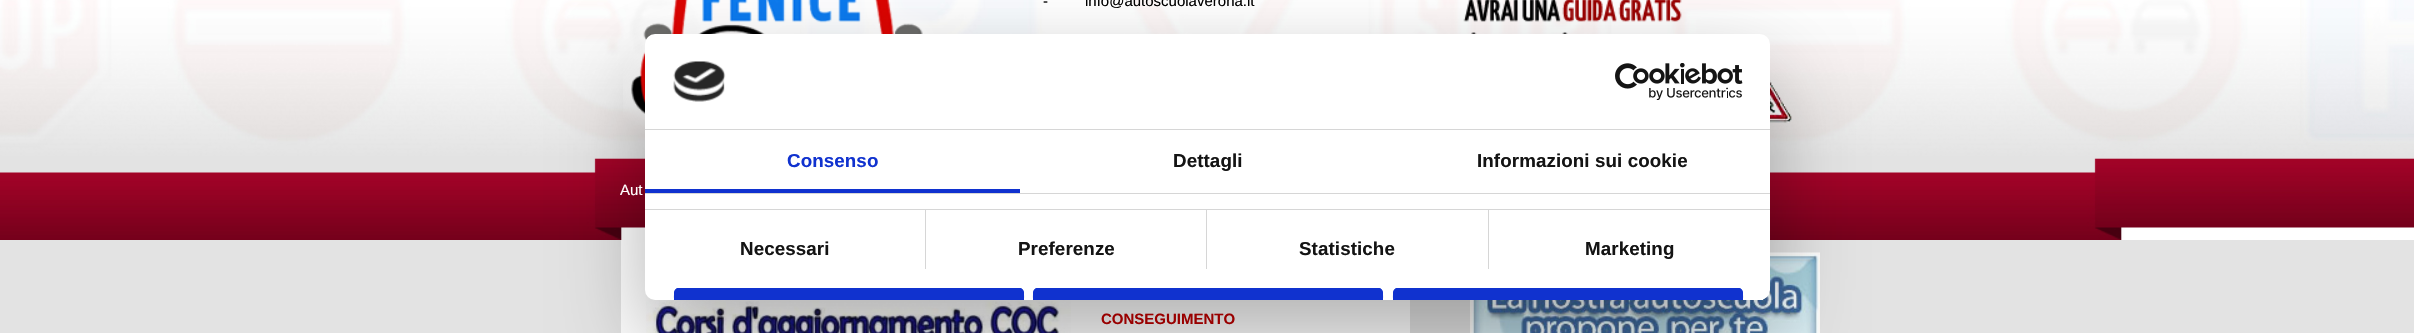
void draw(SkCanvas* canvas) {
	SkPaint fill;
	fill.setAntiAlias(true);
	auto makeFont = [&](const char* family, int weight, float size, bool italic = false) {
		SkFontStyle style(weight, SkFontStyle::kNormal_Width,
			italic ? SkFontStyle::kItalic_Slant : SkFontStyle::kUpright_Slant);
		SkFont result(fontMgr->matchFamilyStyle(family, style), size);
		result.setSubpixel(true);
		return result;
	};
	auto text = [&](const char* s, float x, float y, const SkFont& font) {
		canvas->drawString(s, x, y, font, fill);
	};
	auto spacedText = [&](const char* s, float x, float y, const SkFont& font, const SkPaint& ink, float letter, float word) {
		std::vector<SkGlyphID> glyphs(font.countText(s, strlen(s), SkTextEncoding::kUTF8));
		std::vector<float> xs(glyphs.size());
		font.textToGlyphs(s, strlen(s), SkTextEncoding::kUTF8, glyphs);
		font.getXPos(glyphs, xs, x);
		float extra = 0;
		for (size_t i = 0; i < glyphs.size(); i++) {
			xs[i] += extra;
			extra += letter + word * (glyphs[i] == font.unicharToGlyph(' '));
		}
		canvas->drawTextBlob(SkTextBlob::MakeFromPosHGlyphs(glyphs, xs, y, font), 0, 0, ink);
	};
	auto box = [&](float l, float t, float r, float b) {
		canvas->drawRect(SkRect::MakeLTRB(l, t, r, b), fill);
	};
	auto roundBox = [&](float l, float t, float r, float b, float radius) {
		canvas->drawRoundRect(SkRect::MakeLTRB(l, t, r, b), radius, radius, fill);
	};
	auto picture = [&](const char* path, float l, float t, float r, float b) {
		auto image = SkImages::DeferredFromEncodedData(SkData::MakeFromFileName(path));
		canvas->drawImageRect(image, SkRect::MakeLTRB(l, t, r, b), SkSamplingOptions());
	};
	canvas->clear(0xFFFFFFFF);
	picture("image0.png", 0, 0, 2414, 240);
	picture("image1.png", 623, 0, 941, 136);
	picture("image2.png", 1463, 0, 1792, 123);
	fill.setColor(0xFFE3E3E3);
	box(0, 240, 2414, 333);
	fill.setColor(0xFFFFFFFF);
	box(621, 240, 1410, 333);
	picture("image5.png", 646, 294, 1071, 333);
	picture("image6.png", 1470, 252, 1820, 333);
	fill.setColor(0x4D000000);
	fill.setMaskFilter(SkMaskFilter::MakeBlur(kNormal_SkBlurStyle, 42.5f));
	canvas->drawRoundRect(SkRect::MakeLTRB(645, 74, 1770, 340), 10, 10, fill);
	fill.setMaskFilter(nullptr);
	fill.setColor(0xFFFFFFFF);
	roundBox(645, 34, 1770, 300, 10);
	fill.setColor(0xFFD6D6D6);
	box(645, 129, 1770, 130);
	picture("image3.png", 673, 61, 726, 102);
	picture("image4.png", 1615, 63, 1743, 100);
	box(645, 193, 1770, 194);
	fill.setColor(0xFF1032CF);
	box(645, 189, 1020, 193);
	fill.setColor(0xFFD6D6D6);
	box(645, 209, 1770, 210);
	box(925, 210, 926, 269);
	box(1206, 210, 1207, 269);
	box(1488, 210, 1489, 269);
	fill.setColor(0xFF1032CF);
	canvas->drawPath(SkPathBuilder().moveTo(679, 288).lineTo(1019, 288).cubicTo(1022, 288, 1024, 290, 1024, 293).lineTo(1024, 300).lineTo(674, 300).lineTo(674, 293).cubicTo(674, 290, 676, 288, 679, 288).close().detach(), fill);
	canvas->drawPath(SkPathBuilder().moveTo(679, 288).cubicTo(673, 288, 674, 296, 674, 300).lineTo(677, 300).lineTo(677, 293).cubicTo(677, 292, 678, 291, 679, 291).lineTo(1019, 291).cubicTo(1020, 291, 1021, 292, 1021, 293).lineTo(1021, 300).lineTo(1024, 300).cubicTo(1024, 296, 1025, 288, 1019, 288).close().detach(), fill);
	canvas->drawPath(SkPathBuilder().moveTo(1038, 288).lineTo(1378, 288).cubicTo(1381, 288, 1383, 290, 1383, 293).lineTo(1383, 300).lineTo(1033, 300).lineTo(1033, 293).cubicTo(1033, 290, 1035, 288, 1038, 288).close().detach(), fill);
	canvas->drawPath(SkPathBuilder().moveTo(1038, 288).cubicTo(1032, 288, 1033, 296, 1033, 300).lineTo(1036, 300).lineTo(1036, 293).cubicTo(1036, 292, 1037, 291, 1038, 291).lineTo(1378, 291).cubicTo(1379, 291, 1380, 292, 1380, 293).lineTo(1380, 300).lineTo(1383, 300).cubicTo(1383, 296, 1384, 288, 1378, 288).close().detach(), fill);
	canvas->drawPath(SkPathBuilder().moveTo(1398, 288).lineTo(1738, 288).cubicTo(1741, 288, 1743, 290, 1743, 293).lineTo(1743, 300).lineTo(1393, 300).lineTo(1393, 293).cubicTo(1393, 290, 1395, 288, 1398, 288).close().detach(), fill);
	canvas->drawPath(SkPathBuilder().moveTo(1398, 288).cubicTo(1392, 288, 1393, 296, 1393, 300).lineTo(1396, 300).lineTo(1396, 293).cubicTo(1396, 292, 1397, 291, 1398, 291).lineTo(1738, 291).cubicTo(1739, 291, 1740, 292, 1740, 293).lineTo(1740, 300).lineTo(1743, 300).cubicTo(1743, 296, 1744, 288, 1738, 288).close().detach(), fill);
	fill.setColor(0xFFFFFFFF);
	box(1760, 299, 1763, 300);
	auto font1 = makeFont("Liberation Sans", 400, 15);
	fill.setColor(0xFF000000);
	text("-", 1043, 6, font1);
	text("info@autoscuolaverona.it", 1085, 6, font1);
	fill.setColor(0xFFFFFFFF);
	text("Aut", 620, 195, font1);
	auto font2 = makeFont("Liberation Sans", 700, 18.75f);
	fill.setColor(0xFF1032CF);
	spacedText("Consenso", 787, 167, font2, fill, 0.1f, 0);
	fill.setColor(0xFF141414);
	spacedText("Dettagli", 1173, 167, font2, fill, 0.1f, 0);
	spacedText("Informazioni sui cookie", 1477, 167, font2, fill, 0.1f, 0);
	spacedText("Necessari", 740, 255, font2, fill, 0.1f, 0);
	spacedText("Preferenze", 1018, 255, font2, fill, 0.1f, 0);
	spacedText("Statistiche", 1299, 255, font2, fill, 0.1f, 0);
	spacedText("Marketing", 1585, 255, font2, fill, 0.1f, 0);
	auto font3 = makeFont("Liberation Sans", 700, 15);
	fill.setColor(0xFF990000);
	text("CONSEGUIMENTO", 1101, 324, font3);
}
